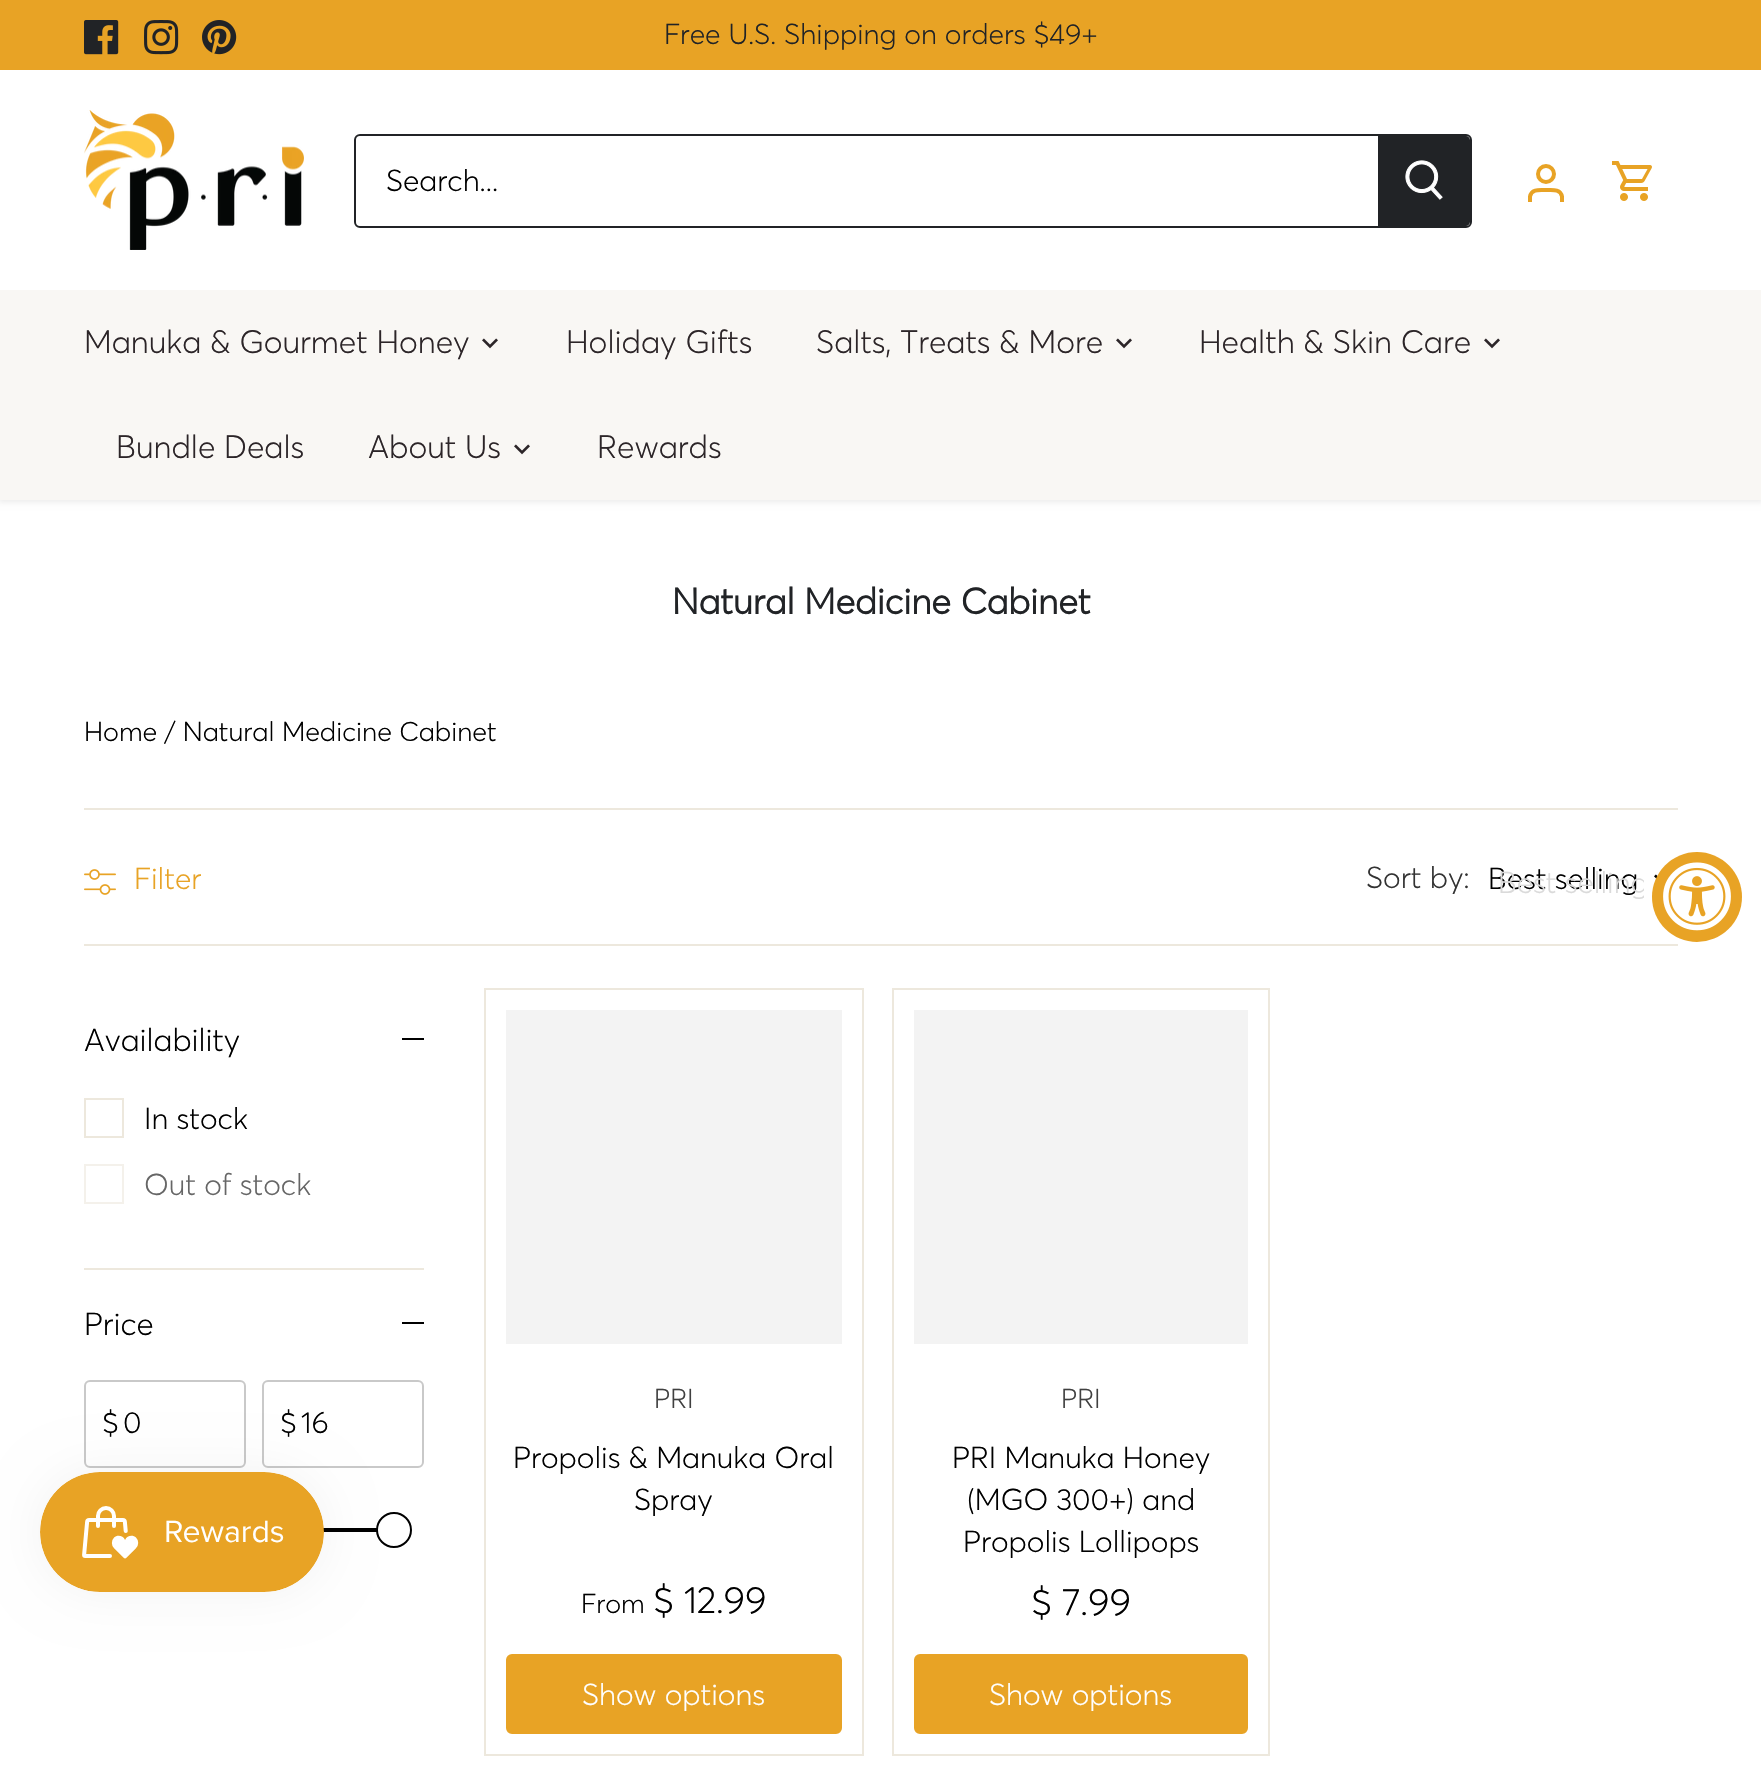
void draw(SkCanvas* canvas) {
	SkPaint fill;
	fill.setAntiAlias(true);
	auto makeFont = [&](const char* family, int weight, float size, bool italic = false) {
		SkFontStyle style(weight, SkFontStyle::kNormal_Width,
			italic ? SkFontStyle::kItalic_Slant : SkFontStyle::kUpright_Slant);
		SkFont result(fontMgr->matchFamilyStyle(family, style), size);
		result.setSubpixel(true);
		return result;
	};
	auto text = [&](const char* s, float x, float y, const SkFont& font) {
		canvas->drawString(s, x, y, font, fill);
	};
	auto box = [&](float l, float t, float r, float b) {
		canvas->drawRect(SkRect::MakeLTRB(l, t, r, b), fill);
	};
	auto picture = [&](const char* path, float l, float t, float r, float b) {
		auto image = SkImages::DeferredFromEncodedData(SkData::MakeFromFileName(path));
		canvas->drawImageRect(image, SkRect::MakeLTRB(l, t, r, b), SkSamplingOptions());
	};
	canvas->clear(0xFFFFFFFF);
	fill.setColor(0x14000000);
	fill.setMaskFilter(SkMaskFilter::MakeBlur(kNormal_SkBlurStyle, 3));
	canvas->drawRect(SkRect::MakeLTRB(-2, 68, 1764, 502), fill);
	fill.setMaskFilter(nullptr);
	fill.setColor(0xFFE8A325);
	box(0, 0, 1761, 70);
	picture("image0.png", 84, 20, 119, 55);
	picture("image1.png", 144, 20, 179, 55);
	picture("image2.png", 202, 20, 237, 55);
	fill.setColor(0xFFF9F7F4);
	box(0, 290, 1761, 500);
	fill.setColor(0xFFFFFFFF);
	box(0, 70, 1761, 290);
	picture("image3.png", 84, 110, 304, 250);
	fill.setStyle(SkPaint::kStroke_Style);
	fill.setStrokeWidth(2);
	fill.setColor(0xFF212326);
	canvas->drawRoundRect(SkRect::MakeLTRB(355, 135, 1471, 227), 5, 5, fill);
	fill.setStyle(SkPaint::kFill_Style);
	fill.setColor(0xFFFFFFFF);
	canvas->drawPath(SkPathBuilder().moveTo(362, 136).lineTo(1380, 136).lineTo(1380, 226).lineTo(362, 226).cubicTo(358.5f, 226, 356, 223.5f, 356, 220).lineTo(356, 142).cubicTo(356, 138.5f, 358.5f, 136, 362, 136).close().detach(), fill);
	fill.setColor(0xFF212326);
	canvas->drawPath(SkPathBuilder().moveTo(1378, 136).lineTo(1466, 136).cubicTo(1468, 136, 1470, 138, 1470, 140).lineTo(1470, 222).cubicTo(1470, 224, 1468, 226, 1466, 226).lineTo(1378, 226).close().detach(), fill);
	picture("image4.png", 1405, 160, 1443, 200);
	fill.setStyle(SkPaint::kStroke_Style);
	fill.setStrokeWidth(4);
	fill.setColor(0xFFE8A325);
	canvas->drawCircle(1546, 174, 8, fill);
	canvas->drawPath(SkPathBuilder().moveTo(1562, 202).lineTo(1562, 196.5f).cubicTo(1560.5f, 188.5f, 1552, 190, 1546, 190).cubicTo(1540, 190, 1531.5f, 188.5f, 1530, 196.5f).lineTo(1530, 202).detach(), fill);
	picture("image5.png", 1612, 161, 1652, 201);
	picture("image6.png", 482, 338, 498, 349);
	picture("image6.png", 1116, 338, 1132, 349);
	picture("image6.png", 1484, 338, 1500, 349);
	picture("image6.png", 514, 444, 530, 455);
	fill.setStyle(SkPaint::kFill_Style);
	fill.setColor(0xFFEDE8DD);
	box(84, 808, 1678, 810);
	box(84, 944, 1678, 946);
	picture("image7.png", 84, 869, 116, 895);
	picture("image8.png", 1654, 874, 1658, 879);
	box(84, 1268, 424, 1270);
	fill.setColor(0xFF000000);
	box(402, 1038, 424, 1040);
	fill.setStyle(SkPaint::kStroke_Style);
	fill.setStrokeWidth(2);
	fill.setColor(0xFFEDE8DD);
	canvas->drawRect(SkRect::MakeLTRB(85, 1099, 123, 1137), fill);
	fill.setColor(0xFFF4F1EB);
	canvas->drawRect(SkRect::MakeLTRB(85, 1165, 123, 1203), fill);
	fill.setStyle(SkPaint::kFill_Style);
	fill.setColor(0xFF000000);
	box(402, 1322, 424, 1324);
	fill.setStyle(SkPaint::kStroke_Style);
	fill.setColor(0xFFC9C9C9);
	canvas->drawRoundRect(SkRect::MakeLTRB(85, 1381, 245, 1467), 5, 5, fill);
	canvas->drawRoundRect(SkRect::MakeLTRB(263, 1381, 423, 1467), 5, 5, fill);
	fill.setStyle(SkPaint::kFill_Style);
	fill.setColor(0xFF000000);
	box(323, 1528, 377, 1532);
	fill.setColor(0xFFFFFFFF);
	canvas->drawCircle(394, 1530, 17, fill);
	fill.setStyle(SkPaint::kStroke_Style);
	fill.setColor(0xFF000000);
	canvas->drawCircle(394, 1530, 17, fill);
	fill.setColor(0xFFEDE8DD);
	canvas->drawRect(SkRect::MakeLTRB(485, 989, 863, 1755), fill);
	fill.setStyle(SkPaint::kFill_Style);
	fill.setColor(0xFFF3F3F3);
	box(506, 1010, 842, 1344);
	fill.setColor(0xFFE8A325);
	canvas->drawRoundRect(SkRect::MakeLTRB(508, 1656, 840, 1732), 4, 4, fill);
	fill.setStyle(SkPaint::kStroke_Style);
	fill.setStrokeWidth(4);
	canvas->drawRoundRect(SkRect::MakeLTRB(508, 1656, 840, 1732), 4, 4, fill);
	fill.setStrokeWidth(2);
	fill.setColor(0xFFEDE8DD);
	canvas->drawRect(SkRect::MakeLTRB(893, 989, 1269, 1755), fill);
	fill.setStyle(SkPaint::kFill_Style);
	fill.setColor(0xFFF3F3F3);
	box(914, 1010, 1248, 1344);
	fill.setColor(0xFFE8A325);
	canvas->drawRoundRect(SkRect::MakeLTRB(916, 1656, 1246, 1732), 4, 4, fill);
	fill.setStyle(SkPaint::kStroke_Style);
	fill.setStrokeWidth(4);
	canvas->drawRoundRect(SkRect::MakeLTRB(916, 1656, 1246, 1732), 4, 4, fill);
	fill.setStyle(SkPaint::kFill_Style);
	canvas->drawCircle(1697, 897, 45, fill);
	picture("image9.png", 1663, 862, 1731, 931);
	fill.setColor(0x0D000000);
	fill.setMaskFilter(SkMaskFilter::MakeBlur(kNormal_SkBlurStyle, 25));
	canvas->drawRoundRect(SkRect::MakeLTRB(40, 1472, 324, 1592), 60, 60, fill);
	fill.setMaskFilter(nullptr);
	picture("image10.png", 40, 1472, 324, 1592);
	auto font1 = makeFont("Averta", 300, 28.5f);
	fill.setColor(0xFF212326);
	text("Free U.S. Shipping on orders $49+", 664, 44, font1);
	auto font2 = makeFont("Averta", 300, 30);
	fill.setColor(0xFF000000);
	text("Search...", 386, 191, font2);
	auto font3 = makeFont("Averta", 300, 32);
	fill.setColor(0xFF2C2528);
	text("Manuka & Gourmet Honey", 84, 353, font3);
	text("Holiday Gifts", 566, 353, font3);
	text("Salts, Treats & More", 816, 353, font3);
	text("Health & Skin Care", 1199, 353, font3);
	text("Bundle Deals", 116, 458, font3);
	text("About Us", 368, 458, font3);
	text("Rewards", 597, 458, font3);
	auto font4 = makeFont("Averta", 700, 36);
	fill.setColor(0xFF212326);
	text("Natural Medicine Cabinet", 672, 614, font4);
	auto font5 = makeFont("Averta", 300, 27);
	fill.setColor(0xFF000000);
	text("Home / Natural Medicine Cabinet", 84, 741, font5);
	fill.setColor(0xFFE8A325);
	text("Filter", 134, 889, font2);
	fill.setColor(0xFF333333);
	text("Sort by:", 1366, 888, font2);
	fill.setColor(0xFF000000);
	text("Best selling", 1488, 889, font2);
	canvas->save();
	canvas->clipRect(SkRect::MakeLTRB(1498, 862, 1644, 904));
	fill.setColor(0xFFDADADA);
	text("Best selling", 1498, 893, font2);
	canvas->restore();
	auto font6 = makeFont("Averta", 300, 31.5f);
	fill.setColor(0xFF000000);
	text("Availability", 84, 1051, font6);
	text("In stock", 144, 1129, font2);
	fill.setColor(0xFF666666);
	text("Out of stock", 144, 1195, font2);
	fill.setColor(0xFF000000);
	text("Price", 84, 1335, font6);
	text("$", 102, 1433, font2);
	text("0", 123, 1433, font2);
	text("$", 280, 1433, font2);
	text("16", 301, 1433, font2);
	fill.setColor(0xFF404040);
	text("PRI", 654, 1408, font5);
	fill.setColor(0xFF000000);
	text("Propolis & Manuka Oral", 513, 1468, font2);
	text("Spray", 634, 1510, font2);
	text("From", 581, 1613, font5);
	auto font7 = makeFont("Averta", 300, 37.5f);
	text("$ 12.99", 653, 1613, font7);
	fill.setColor(0xFFFFFFFF);
	text("Show options", 582, 1705, font2);
	fill.setColor(0xFF404040);
	text("PRI", 1061, 1408, font5);
	fill.setColor(0xFF000000);
	text("PRI Manuka Honey", 952, 1468, font2);
	text("(MGO 300+) and", 967, 1510, font2);
	text("Propolis Lollipops", 963, 1552, font2);
	text("$ 7.99", 1031, 1615, font7);
	fill.setColor(0xFFFFFFFF);
	text("Show options", 989, 1705, font2);
}
